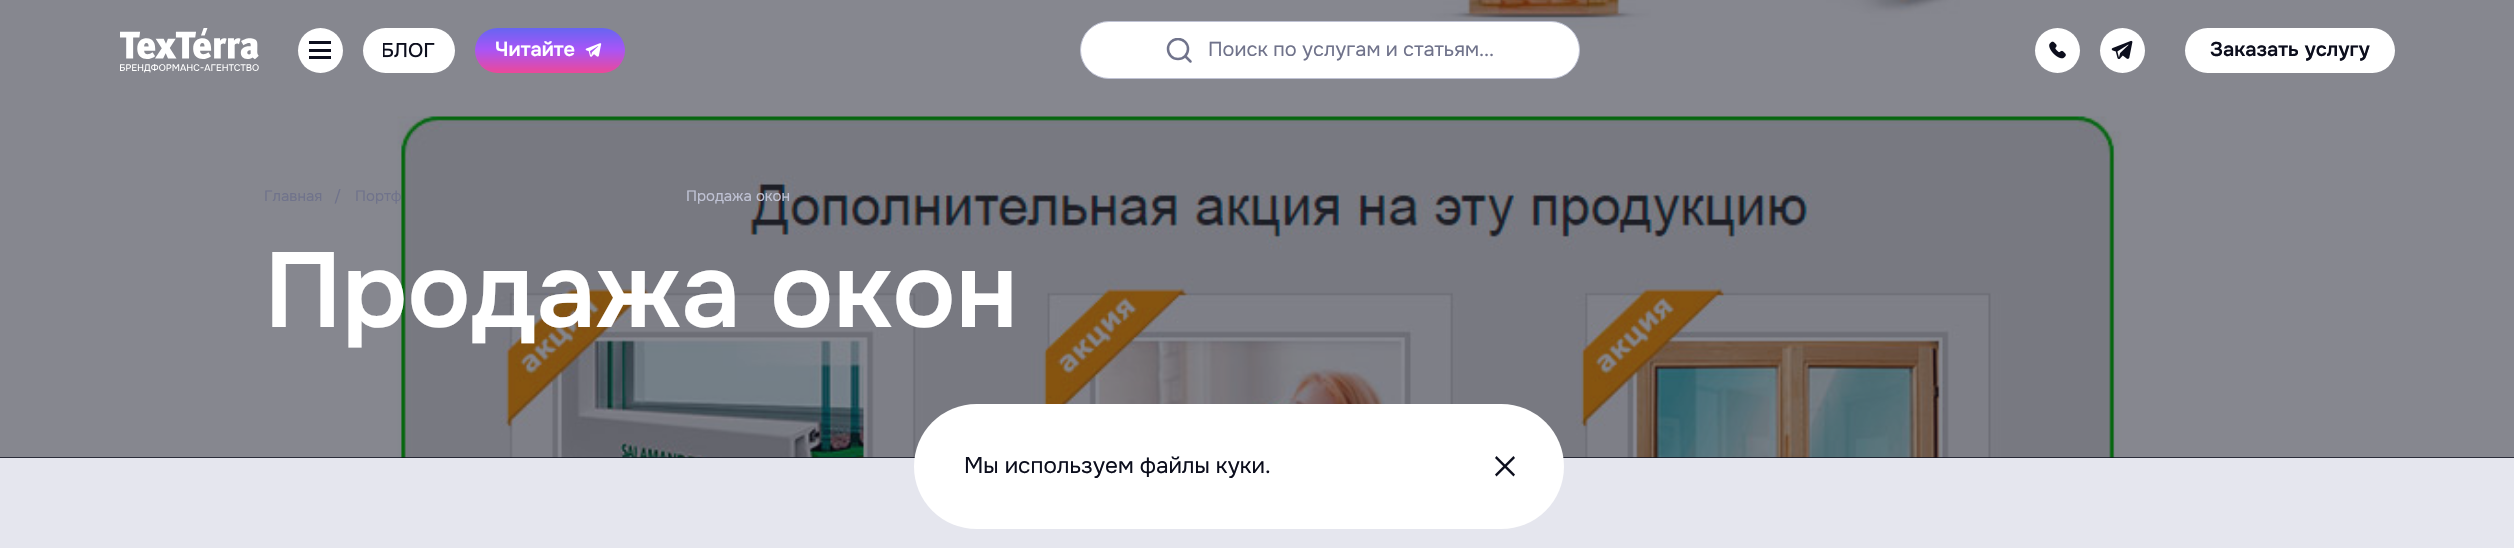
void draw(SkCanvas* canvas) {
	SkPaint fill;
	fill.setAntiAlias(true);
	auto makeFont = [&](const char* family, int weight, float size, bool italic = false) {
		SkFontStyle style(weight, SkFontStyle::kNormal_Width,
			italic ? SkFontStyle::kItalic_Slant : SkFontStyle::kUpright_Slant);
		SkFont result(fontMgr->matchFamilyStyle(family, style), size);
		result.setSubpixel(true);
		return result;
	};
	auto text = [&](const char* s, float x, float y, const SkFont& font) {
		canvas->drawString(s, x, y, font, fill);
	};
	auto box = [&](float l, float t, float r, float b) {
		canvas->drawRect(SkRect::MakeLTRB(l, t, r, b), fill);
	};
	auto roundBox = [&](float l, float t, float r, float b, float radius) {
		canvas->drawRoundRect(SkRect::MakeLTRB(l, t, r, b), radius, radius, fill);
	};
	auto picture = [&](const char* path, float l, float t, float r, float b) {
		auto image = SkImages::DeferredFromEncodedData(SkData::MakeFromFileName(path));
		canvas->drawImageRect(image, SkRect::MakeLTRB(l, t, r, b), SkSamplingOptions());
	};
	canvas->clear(0xFFE5E6EE);
	fill.setColor(0xFF0C0E1D);
	box(0, 0, 2514, 458);
	picture("image5.png", 0, 0, 2514, 458);
	picture("image0.png", 120, 28, 259, 73);
	fill.setColor(0xFFFFFFFF);
	canvas->drawCircle(320.5f, 50.5f, 22.5f, fill);
	fill.setColor(0xFF0C0E1D);
	box(309, 41, 331, 44);
	box(309, 49, 331, 52);
	box(309, 56, 331, 59);
	fill.setColor(0xFFFFFFFF);
	roundBox(363, 28, 455, 73, 22.5f);
	picture("image1.png", 383, 43, 435, 58);
	{
		const SkColor colors[] = {0xFF6366F1, 0xFFA855F7, 0xFFEC4899};
		const float stops[] = {0, 0.49f, 1};
		const SkPoint ends[] = {{550, 27}, {550, 73}};
		fill.setShader(SkGradientShader::MakeLinear(ends, colors, stops, 3, SkTileMode::kClamp));
		fill.setAlpha(255);
	}
	roundBox(475, 28, 625, 73, 22.5f);
	picture("image2.png", 585, 43, 602, 57);
	fill.setShader(nullptr);
	fill.setColor(0xFFFFFFFF);
	canvas->drawRoundRect(SkRect::MakeLTRB(1080.5f, 21.5f, 1579.5f, 78.5f), 28.5f, 28.5f, fill);
	fill.setStyle(SkPaint::kStroke_Style);
	fill.setStrokeWidth(1);
	fill.setColor(0xFFBFC2D4);
	canvas->drawRoundRect(SkRect::MakeLTRB(1080.5f, 21.5f, 1579.5f, 78.5f), 28.5f, 28.5f, fill);
	canvas->save();
	canvas->clipRect(SkRect::MakeLTRB(1166, 38, 1193, 64));
	fill.setStrokeWidth(2.5f);
	fill.setColor(0xFF70738B);
	canvas->drawCircle(1178, 49, 10, fill);
	canvas->restore();
	fill.setStrokeCap(SkPaint::kRound_Cap);
	fill.setStrokeJoin(SkPaint::kRound_Join);
	canvas->drawPath(SkPathBuilder().moveTo(1185.5f, 56.5f).lineTo(1190.5f, 61.5f).detach(), fill);
	fill.setStyle(SkPaint::kFill_Style);
	fill.setColor(0xFFFFFFFF);
	canvas->drawCircle(2057.5f, 50.5f, 22.5f, fill);
	picture("image3.png", 2049, 41, 2066, 59);
	canvas->drawCircle(2122.5f, 50.5f, 22.5f, fill);
	picture("image4.png", 2111, 40, 2133, 59);
	roundBox(2185, 28, 2395, 73, 22.5f);
	roundBox(914, 404, 1564, 529, 62.5f);
	fill.setColor(0xFF0C0E1D);
	canvas->drawPath(SkPathBuilder().moveTo(1496.5f, 456).lineTo(1515, 474.5f).lineTo(1513.5f, 476.5f).lineTo(1495, 458).close().detach(), fill);
	canvas->drawPath(SkPathBuilder().moveTo(1495, 474.5f).lineTo(1513.5f, 456).lineTo(1515, 458).lineTo(1496.5f, 476.5f).close().detach(), fill);
	auto font1 = makeFont("Onest", 600, 20);
	fill.setColor(0xFFFFFFFF);
	text("Читайте", 495, 56, font1);
	auto font2 = makeFont("Onest", 400, 20);
	fill.setColor(0xFF70738B);
	text("Поиск по услугам и статьям...", 1208, 56, font2);
	fill.setColor(0xFF0C0E1D);
	text("Заказать услугу", 2210, 56, font1);
	auto font3 = makeFont("Onest", 400, 15);
	fill.setColor(0xFF70738B);
	text("Главная", 264, 201, font3);
	text("/", 334, 201, font3);
	text("Портф", 355, 201, font3);
	fill.setColor(0xFFBFC2D4);
	text("Продажа окон", 686, 201, font3);
	auto font4 = makeFont("Onest", 600, 106.25f);
	fill.setColor(0xFFFFFFFF);
	text("Продажа окон", 264, 327, font4);
	auto font5 = makeFont("Onest", 400, 22.5f);
	fill.setColor(0xFF0C0E1D);
	text("Мы используем файлы куки.", 964, 473, font5);
}
